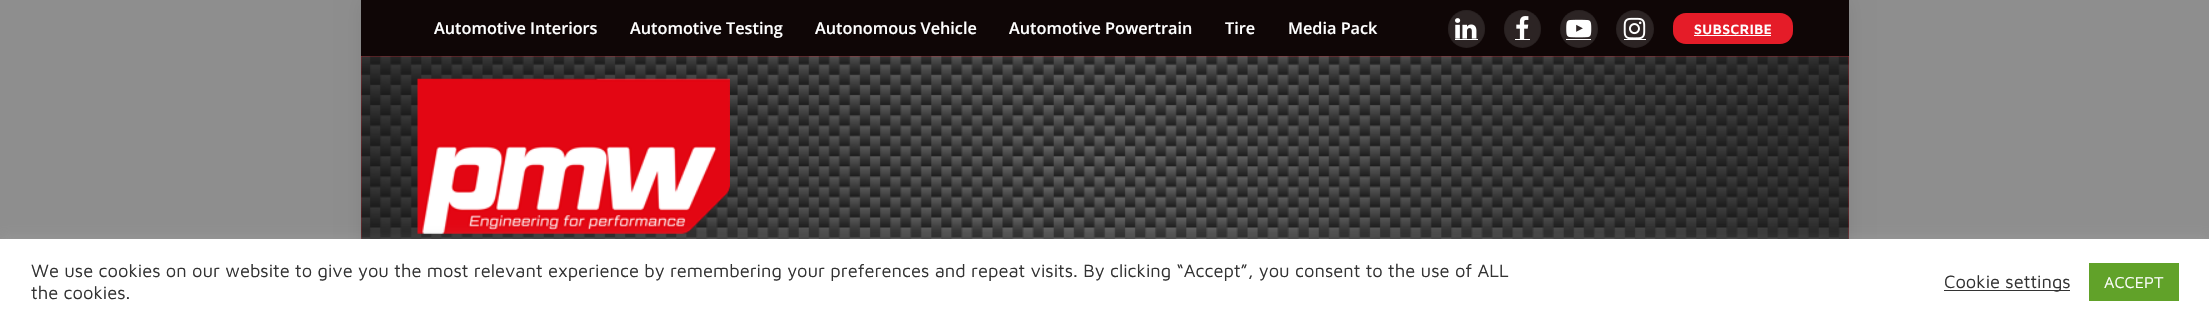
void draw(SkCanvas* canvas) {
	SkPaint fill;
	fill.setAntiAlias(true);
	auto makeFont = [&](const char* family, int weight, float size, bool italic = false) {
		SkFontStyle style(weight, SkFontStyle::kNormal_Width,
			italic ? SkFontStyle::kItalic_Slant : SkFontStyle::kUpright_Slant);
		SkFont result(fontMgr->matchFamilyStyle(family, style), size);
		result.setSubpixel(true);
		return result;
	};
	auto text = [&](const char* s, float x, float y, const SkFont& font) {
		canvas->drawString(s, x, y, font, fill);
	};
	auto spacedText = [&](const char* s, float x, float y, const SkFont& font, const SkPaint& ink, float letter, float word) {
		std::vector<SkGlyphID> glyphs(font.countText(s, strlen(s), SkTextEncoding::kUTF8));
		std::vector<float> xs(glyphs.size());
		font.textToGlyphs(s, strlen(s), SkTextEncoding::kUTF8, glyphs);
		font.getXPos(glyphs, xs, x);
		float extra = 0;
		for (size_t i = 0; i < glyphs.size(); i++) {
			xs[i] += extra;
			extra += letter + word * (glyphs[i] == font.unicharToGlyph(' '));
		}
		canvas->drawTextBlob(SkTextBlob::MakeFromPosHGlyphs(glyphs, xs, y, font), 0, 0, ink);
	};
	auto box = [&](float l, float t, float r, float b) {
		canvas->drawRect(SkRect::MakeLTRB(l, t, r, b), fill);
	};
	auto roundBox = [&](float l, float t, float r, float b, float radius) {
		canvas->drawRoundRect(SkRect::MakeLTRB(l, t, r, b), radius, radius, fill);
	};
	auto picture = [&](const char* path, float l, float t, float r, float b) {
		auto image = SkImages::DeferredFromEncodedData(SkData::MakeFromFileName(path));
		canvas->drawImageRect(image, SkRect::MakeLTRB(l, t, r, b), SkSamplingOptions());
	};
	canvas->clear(0xFF8E8E8E);
	fill.setColor(0x14000000);
	fill.setMaskFilter(SkMaskFilter::MakeBlur(kNormal_SkBlurStyle, 9.5f));
	canvas->drawRect(SkRect::MakeLTRB(361, 0, 1849, 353), fill);
	fill.setMaskFilter(nullptr);
	fill.setColor(0xFF0F0606);
	box(361, 0, 1849, 56);
	fill.setColor(0xFF2C2424);
	roundBox(1448, 10, 1485, 48, 18.5f);
	fill.setStyle(SkPaint::kStroke_Style);
	fill.setStrokeWidth(1);
	fill.setColor(0x17000000);
	canvas->drawRoundRect(SkRect::MakeLTRB(1448.5f, 10.5f, 1484.5f, 47.5f), 18, 18, fill);
	picture("image0.png", 1455, 18, 1477, 39);
	fill.setStyle(SkPaint::kFill_Style);
	fill.setColor(0xFFFFFFFF);
	box(1455, 39, 1478, 40);
	fill.setColor(0xFF2C2424);
	roundBox(1504, 10, 1541, 48, 18.5f);
	fill.setStyle(SkPaint::kStroke_Style);
	fill.setColor(0x17000000);
	canvas->drawRoundRect(SkRect::MakeLTRB(1504.5f, 10.5f, 1540.5f, 47.5f), 18, 18, fill);
	picture("image1.png", 1516, 16, 1529, 39);
	fill.setStyle(SkPaint::kFill_Style);
	fill.setColor(0xFFFFFFFF);
	box(1515, 39, 1530, 40);
	fill.setColor(0xFF2C2424);
	canvas->drawCircle(1579, 29, 19, fill);
	fill.setStyle(SkPaint::kStroke_Style);
	fill.setColor(0x17000000);
	canvas->drawCircle(1579, 29, 18.5f, fill);
	picture("image2.png", 1566, 19, 1592, 38);
	fill.setStyle(SkPaint::kFill_Style);
	fill.setColor(0xFFFFFFFF);
	box(1566, 39, 1591, 40);
	fill.setColor(0xFF2C2424);
	canvas->drawCircle(1635, 29, 19, fill);
	fill.setStyle(SkPaint::kStroke_Style);
	fill.setColor(0x17000000);
	canvas->drawCircle(1635, 29, 18.5f, fill);
	picture("image3.png", 1623, 17, 1646, 39);
	fill.setStyle(SkPaint::kFill_Style);
	fill.setColor(0xFFFFFFFF);
	box(1624, 39, 1646, 40);
	fill.setColor(0xFFE51C28);
	roundBox(1673, 13, 1793, 44, 13);
	fill.setColor(0xFFFFFFFF);
	box(1694, 35, 1771, 36);
	fill.setColor(0xFFE51C28);
	box(361, 56, 1849, 239);
	picture("image4.png", 361, 56, 1849, 239);
	picture("image5.png", 417, 78, 730, 234);
	fill.setColor(0x4DACABAB);
	fill.setMaskFilter(SkMaskFilter::MakeBlur(kNormal_SkBlurStyle, 6));
	canvas->drawRect(SkRect::MakeLTRB(0, 238, 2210, 324), fill);
	fill.setMaskFilter(nullptr);
	fill.setColor(0xFFFFFFFF);
	box(0, 239, 2209, 324);
	fill.setColor(0xFF333333);
	box(1944, 290, 2070, 291);
	fill.setColor(0xFF61A229);
	box(2089, 263, 2179, 301);
	auto font1 = makeFont("Open Sans", 600, 16.25f);
	fill.setColor(0xFFFFFFFF);
	text("Automotive Interiors", 434, 34, font1);
	text("Automotive Testing", 630, 34, font1);
	text("Autonomous Vehicle", 815, 34, font1);
	text("Automotive Powertrain", 1009, 34, font1);
	text("Tire", 1225, 34, font1);
	text("Media Pack", 1288, 34, font1);
	auto font2 = makeFont("Maven Pro", 600, 13.75f);
	spacedText("SUBSCRIBE", 1694, 34, font2, fill, 0.5f, 0);
	auto font3 = makeFont("Maven Pro", 400, 18.33f);
	fill.setColor(0xFF333333);
	text("We use cookies on our website to give you the most relevant experience by remembering your preferences and repeat visits. By clicking “Accept”, you consent to the use of ALL", 31, 277, font3);
	text("the cookies.", 31, 299, font3);
	text("Cookie settings", 1944, 288, font3);
	auto font4 = makeFont("Maven Pro", 400, 16.25f);
	fill.setColor(0xFFFFFFFF);
	text("ACCEPT", 2104, 288, font4);
}
